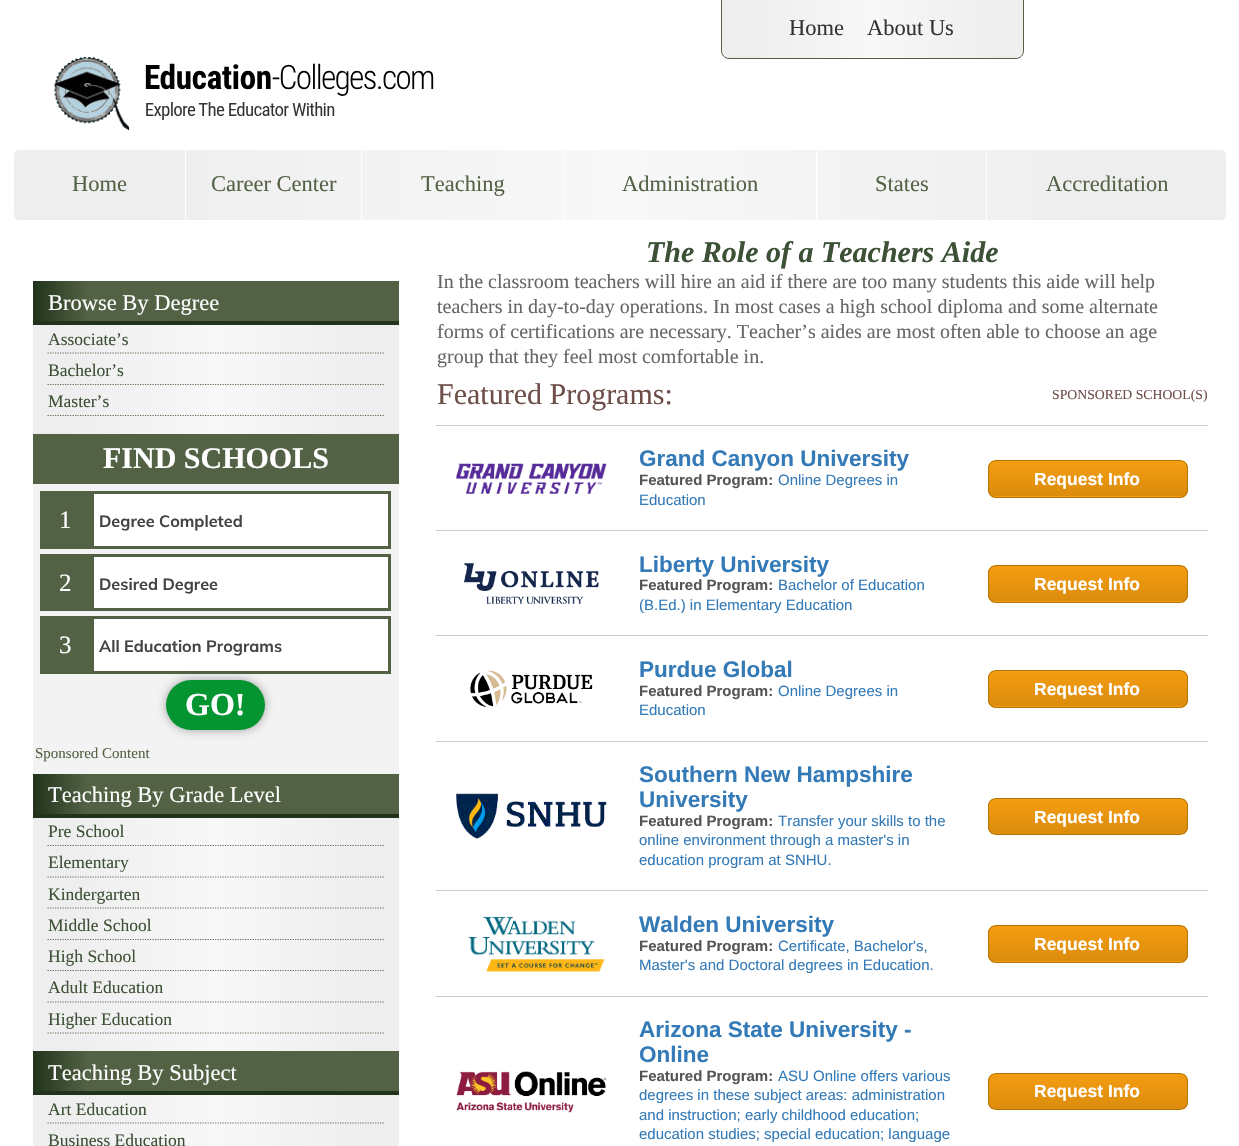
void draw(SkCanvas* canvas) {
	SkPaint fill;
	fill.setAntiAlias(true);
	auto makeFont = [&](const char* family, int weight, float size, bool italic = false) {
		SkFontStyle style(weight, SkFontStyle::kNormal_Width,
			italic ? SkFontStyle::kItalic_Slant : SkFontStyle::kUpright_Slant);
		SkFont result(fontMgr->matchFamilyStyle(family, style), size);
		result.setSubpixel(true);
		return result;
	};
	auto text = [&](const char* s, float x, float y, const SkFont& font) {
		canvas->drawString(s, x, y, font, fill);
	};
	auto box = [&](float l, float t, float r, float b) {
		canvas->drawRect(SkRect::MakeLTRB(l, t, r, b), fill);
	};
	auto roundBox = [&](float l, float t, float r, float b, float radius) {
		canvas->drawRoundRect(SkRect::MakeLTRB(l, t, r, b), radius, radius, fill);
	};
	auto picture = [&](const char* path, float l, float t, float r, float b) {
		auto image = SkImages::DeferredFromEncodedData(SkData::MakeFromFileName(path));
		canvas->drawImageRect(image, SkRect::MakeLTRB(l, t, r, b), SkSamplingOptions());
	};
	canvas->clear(0xFFFFFFFF);
	canvas->save();
	canvas->clipPath(SkPathBuilder().moveTo(721, -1).lineTo(1024, -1).lineTo(1024, 51).cubicTo(1024, 55.5f, 1020.5f, 59, 1016, 59).lineTo(729, 59).cubicTo(724.5f, 59, 721, 55.5f, 721, 51).close().detach(), true);
	{
		const SkColor colors[] = {0xFFEEEEEE, 0xFFF8F8F8, 0xFFEEEEEE};
		const float stops[] = {0.1f, 0.5f, 0.9f};
		const SkPoint ends[] = {{423, 29}, {723, 29}};
		fill.setShader(SkGradientShader::MakeLinear(ends, colors, stops, 3, SkTileMode::kClamp));
		fill.setAlpha(255);
	}
	box(721, 0, 723, 59);
	{
		const SkColor colors[] = {0xFFEEEEEE, 0xFFF8F8F8, 0xFFEEEEEE};
		const float stops[] = {0.1f, 0.5f, 0.9f};
		const SkPoint ends[] = {{723, 29}, {1023, 29}};
		fill.setShader(SkGradientShader::MakeLinear(ends, colors, stops, 3, SkTileMode::kClamp));
		fill.setAlpha(255);
	}
	box(723, 0, 1023, 59);
	canvas->restore();
	fill.setStyle(SkPaint::kStroke_Style);
	fill.setStrokeWidth(1);
	fill.setShader(nullptr);
	fill.setColor(0xFF536245);
	canvas->drawPath(SkPathBuilder().moveTo(721.5f, -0.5f).lineTo(1023.5f, -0.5f).lineTo(1023.5f, 51).cubicTo(1023.5f, 55, 1020, 58.5f, 1016, 58.5f).lineTo(729, 58.5f).cubicTo(725, 58.5f, 721.5f, 55, 721.5f, 51).close().detach(), fill);
	picture("image0.png", 54, 57, 434, 130);
	fill.setStyle(SkPaint::kFill_Style);
	{
		const SkColor colors[] = {0xFFEEEEEE, 0xFFF8F8F8, 0xFFEEEEEE};
		const float stops[] = {0.1f, 0.5f, 0.9f};
		const SkPoint ends[] = {{14, 185}, {1226, 185}};
		fill.setShader(SkGradientShader::MakeLinear(ends, colors, stops, 3, SkTileMode::kClamp));
		fill.setAlpha(255);
	}
	roundBox(14, 150, 1226, 220, 5);
	fill.setShader(nullptr);
	fill.setColor(0xFFFFFFFF);
	box(185, 150, 186, 220);
	box(361, 150, 362, 220);
	box(563, 150, 564, 220);
	box(816, 150, 817, 220);
	box(986, 150, 987, 220);
	{
		const SkColor colors[] = {0xFF21331B, 0xFF536245};
		const float stops[] = {0, 0.15f};
		const SkPoint ends[] = {{33, 301}, {399, 301}};
		fill.setShader(SkGradientShader::MakeLinear(ends, colors, stops, 2, SkTileMode::kClamp));
		fill.setAlpha(255);
	}
	box(33, 281, 399, 321);
	fill.setShader(nullptr);
	fill.setColor(0xFF21331B);
	box(33, 321, 399, 325);
	{
		const SkColor colors[] = {0xFFEEEEEE, 0xFFF8F8F8, 0xFFEEEEEE};
		const float stops[] = {0.1f, 0.5f, 0.9f};
		const SkPoint ends[] = {{33, 379}, {399, 379}};
		fill.setShader(SkGradientShader::MakeLinear(ends, colors, stops, 3, SkTileMode::kClamp));
		fill.setAlpha(255);
	}
	box(33, 325, 399, 434);
	fill.setStyle(SkPaint::kStroke_Style);
	fill.setStrokeWidth(1.2f);
	fill.setShader(nullptr);
	fill.setColor(0xFF5F7050);
	fill.setPathEffect(SkDashPathEffect::Make({{1.25f, 1.25f}}, 0));
	canvas->drawPath(SkPathBuilder().moveTo(47.5f, 353).lineTo(384, 353).detach(), fill);
	fill.setPathEffect(nullptr);
	fill.setPathEffect(SkDashPathEffect::Make({{1.25f, 1.25f}}, 0));
	canvas->drawPath(SkPathBuilder().moveTo(47.5f, 384.5f).lineTo(384, 384.5f).detach(), fill);
	fill.setPathEffect(nullptr);
	fill.setPathEffect(SkDashPathEffect::Make({{1.25f, 1.25f}}, 0));
	canvas->drawPath(SkPathBuilder().moveTo(47.5f, 415.5f).lineTo(384, 415.5f).detach(), fill);
	fill.setPathEffect(nullptr);
	fill.setStyle(SkPaint::kFill_Style);
	fill.setColor(0xFFF3F3F3);
	box(33, 484, 399, 774);
	fill.setColor(0xFF536245);
	box(33, 434, 399, 484);
	box(40, 491, 91, 549);
	fill.setColor(0xFFFFFFFF);
	canvas->drawRect(SkRect::MakeLTRB(92.5f, 492.5f, 389.5f, 547.5f), fill);
	fill.setStyle(SkPaint::kStroke_Style);
	fill.setStrokeWidth(3);
	fill.setColor(0xFF536245);
	canvas->drawRect(SkRect::MakeLTRB(92.5f, 492.5f, 389.5f, 547.5f), fill);
	fill.setStyle(SkPaint::kFill_Style);
	box(40, 554, 91, 611);
	fill.setColor(0xFFFFFFFF);
	canvas->drawRect(SkRect::MakeLTRB(92.5f, 555.5f, 389.5f, 609.5f), fill);
	fill.setStyle(SkPaint::kStroke_Style);
	fill.setColor(0xFF536245);
	canvas->drawRect(SkRect::MakeLTRB(92.5f, 555.5f, 389.5f, 609.5f), fill);
	fill.setStyle(SkPaint::kFill_Style);
	box(40, 616, 91, 674);
	fill.setColor(0xFFFFFFFF);
	canvas->drawRect(SkRect::MakeLTRB(92.5f, 617.5f, 389.5f, 672.5f), fill);
	fill.setStyle(SkPaint::kStroke_Style);
	fill.setColor(0xFF536245);
	canvas->drawRect(SkRect::MakeLTRB(92.5f, 617.5f, 389.5f, 672.5f), fill);
	fill.setStyle(SkPaint::kFill_Style);
	fill.setColor(0x59000000);
	fill.setMaskFilter(SkMaskFilter::MakeBlur(kNormal_SkBlurStyle, 5));
	canvas->drawRoundRect(SkRect::MakeLTRB(166, 680, 265, 730), 25, 25, fill);
	fill.setMaskFilter(nullptr);
	fill.setColor(0xFF049530);
	roundBox(166, 680, 265, 730, 25);
	{
		const SkColor colors[] = {0xFF21331B, 0xFF536245};
		const float stops[] = {0, 0.15f};
		const SkPoint ends[] = {{33, 794}, {399, 794}};
		fill.setShader(SkGradientShader::MakeLinear(ends, colors, stops, 2, SkTileMode::kClamp));
		fill.setAlpha(255);
	}
	box(33, 774, 399, 814);
	fill.setShader(nullptr);
	fill.setColor(0xFF21331B);
	box(33, 814, 399, 818);
	{
		const SkColor colors[] = {0xFFEEEEEE, 0xFFF8F8F8, 0xFFEEEEEE};
		const float stops[] = {0.1f, 0.5f, 0.9f};
		const SkPoint ends[] = {{33, 934}, {399, 934}};
		fill.setShader(SkGradientShader::MakeLinear(ends, colors, stops, 3, SkTileMode::kClamp));
		fill.setAlpha(255);
	}
	box(33, 818, 399, 1051);
	fill.setStyle(SkPaint::kStroke_Style);
	fill.setStrokeWidth(1.2f);
	fill.setShader(nullptr);
	fill.setColor(0xFF5F7050);
	fill.setPathEffect(SkDashPathEffect::Make({{1.25f, 1.25f}}, 0));
	canvas->drawPath(SkPathBuilder().moveTo(47.5f, 845.5f).lineTo(384, 845.5f).detach(), fill);
	fill.setPathEffect(nullptr);
	fill.setPathEffect(SkDashPathEffect::Make({{1.25f, 1.25f}}, 0));
	canvas->drawPath(SkPathBuilder().moveTo(47.5f, 877).lineTo(384, 877).detach(), fill);
	fill.setPathEffect(nullptr);
	fill.setPathEffect(SkDashPathEffect::Make({{1.25f, 1.25f}}, 0));
	canvas->drawPath(SkPathBuilder().moveTo(47.5f, 908).lineTo(384, 908).detach(), fill);
	fill.setPathEffect(nullptr);
	fill.setPathEffect(SkDashPathEffect::Make({{1.25f, 1.25f}}, 0));
	canvas->drawPath(SkPathBuilder().moveTo(47.5f, 939.5f).lineTo(384, 939.5f).detach(), fill);
	fill.setPathEffect(nullptr);
	fill.setPathEffect(SkDashPathEffect::Make({{1.25f, 1.25f}}, 0));
	canvas->drawPath(SkPathBuilder().moveTo(47.5f, 970.5f).lineTo(384, 970.5f).detach(), fill);
	fill.setPathEffect(nullptr);
	fill.setPathEffect(SkDashPathEffect::Make({{1.25f, 1.25f}}, 0));
	canvas->drawPath(SkPathBuilder().moveTo(47.5f, 1002).lineTo(384, 1002).detach(), fill);
	fill.setPathEffect(nullptr);
	fill.setPathEffect(SkDashPathEffect::Make({{1.25f, 1.25f}}, 0));
	canvas->drawPath(SkPathBuilder().moveTo(47.5f, 1033).lineTo(384, 1033).detach(), fill);
	fill.setPathEffect(nullptr);
	fill.setStyle(SkPaint::kFill_Style);
	{
		const SkColor colors[] = {0xFF21331B, 0xFF536245};
		const float stops[] = {0, 0.15f};
		const SkPoint ends[] = {{33, 1071}, {399, 1071}};
		fill.setShader(SkGradientShader::MakeLinear(ends, colors, stops, 2, SkTileMode::kClamp));
		fill.setAlpha(255);
	}
	box(33, 1051, 399, 1091);
	fill.setShader(nullptr);
	fill.setColor(0xFF21331B);
	box(33, 1091, 399, 1095);
	{
		const SkColor colors[] = {0xFFEEEEEE, 0xFFF8F8F8, 0xFFEEEEEE};
		const float stops[] = {0.1f, 0.5f, 0.9f};
		const SkPoint ends[] = {{33, 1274}, {399, 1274}};
		fill.setShader(SkGradientShader::MakeLinear(ends, colors, stops, 3, SkTileMode::kClamp));
		fill.setAlpha(255);
	}
	box(33, 1095, 399, 1146);
	fill.setStyle(SkPaint::kStroke_Style);
	fill.setShader(nullptr);
	fill.setColor(0xFF5F7050);
	fill.setPathEffect(SkDashPathEffect::Make({{1.25f, 1.25f}}, 0));
	canvas->drawPath(SkPathBuilder().moveTo(47.5f, 1123).lineTo(384, 1123).detach(), fill);
	fill.setPathEffect(nullptr);
	fill.setStyle(SkPaint::kFill_Style);
	fill.setColor(0xFFCCCCCC);
	box(436, 425, 1208, 426);
	picture("image1.png", 456, 463, 607, 494);
	canvas->save();
	canvas->clipPath(SkPathBuilder().moveTo(996, 460).lineTo(1180, 460).cubicTo(1184.5f, 460, 1188, 463.5f, 1188, 468).lineTo(1188, 490).cubicTo(1188, 494.5f, 1184.5f, 498, 1180, 498).lineTo(996, 498).cubicTo(991.5f, 498, 988, 494.5f, 988, 490).lineTo(988, 468).cubicTo(988, 463.5f, 991.5f, 460, 996, 460).close().detach(), true);
	{
		const SkColor colors[] = {0xFFF39C12, 0xFFDB8C0B};
		const float stops[] = {0.05f, 1};
		const SkPoint ends[] = {{1088, 461}, {1088, 496}};
		fill.setShader(SkGradientShader::MakeLinear(ends, colors, stops, 2, SkTileMode::kClamp));
		fill.setAlpha(255);
	}
	box(988, 461, 1188, 496);
	{
		const SkColor colors[] = {0xFFF39C12, 0xFFDB8C0B};
		const float stops[] = {0.05f, 1};
		const SkPoint ends[] = {{1088, 496}, {1088, 531}};
		fill.setShader(SkGradientShader::MakeLinear(ends, colors, stops, 2, SkTileMode::kClamp));
		fill.setAlpha(255);
	}
	box(988, 496, 1188, 498);
	canvas->restore();
	fill.setStyle(SkPaint::kStroke_Style);
	fill.setStrokeWidth(1);
	fill.setShader(nullptr);
	fill.setColor(0xFFB57309);
	canvas->drawRoundRect(SkRect::MakeLTRB(988.5f, 460.5f, 1187.5f, 497.5f), 7.5f, 7.5f, fill);
	fill.setStyle(SkPaint::kFill_Style);
	fill.setColor(0xFFCCCCCC);
	box(436, 530, 1208, 531);
	picture("image2.png", 464, 563, 599, 604);
	canvas->save();
	canvas->clipPath(SkPathBuilder().moveTo(996, 565).lineTo(1180, 565).cubicTo(1184.5f, 565, 1188, 568.5f, 1188, 573).lineTo(1188, 595).cubicTo(1188, 599.5f, 1184.5f, 603, 1180, 603).lineTo(996, 603).cubicTo(991.5f, 603, 988, 599.5f, 988, 595).lineTo(988, 573).cubicTo(988, 568.5f, 991.5f, 565, 996, 565).close().detach(), true);
	{
		const SkColor colors[] = {0xFFF39C12, 0xFFDB8C0B};
		const float stops[] = {0.05f, 1};
		const SkPoint ends[] = {{1088, 566}, {1088, 601}};
		fill.setShader(SkGradientShader::MakeLinear(ends, colors, stops, 2, SkTileMode::kClamp));
		fill.setAlpha(255);
	}
	box(988, 566, 1188, 601);
	{
		const SkColor colors[] = {0xFFF39C12, 0xFFDB8C0B};
		const float stops[] = {0.05f, 1};
		const SkPoint ends[] = {{1088, 601}, {1088, 636}};
		fill.setShader(SkGradientShader::MakeLinear(ends, colors, stops, 2, SkTileMode::kClamp));
		fill.setAlpha(255);
	}
	box(988, 601, 1188, 603);
	canvas->restore();
	fill.setStyle(SkPaint::kStroke_Style);
	fill.setShader(nullptr);
	fill.setColor(0xFFB57309);
	canvas->drawRoundRect(SkRect::MakeLTRB(988.5f, 565.5f, 1187.5f, 602.5f), 7.5f, 7.5f, fill);
	fill.setStyle(SkPaint::kFill_Style);
	fill.setColor(0xFFCCCCCC);
	box(436, 635, 1208, 636);
	picture("image3.png", 470, 670, 593, 708);
	canvas->save();
	canvas->clipPath(SkPathBuilder().moveTo(996, 670).lineTo(1180, 670).cubicTo(1184.5f, 670, 1188, 673.5f, 1188, 678).lineTo(1188, 700).cubicTo(1188, 704.5f, 1184.5f, 708, 1180, 708).lineTo(996, 708).cubicTo(991.5f, 708, 988, 704.5f, 988, 700).lineTo(988, 678).cubicTo(988, 673.5f, 991.5f, 670, 996, 670).close().detach(), true);
	{
		const SkColor colors[] = {0xFFF39C12, 0xFFDB8C0B};
		const float stops[] = {0.05f, 1};
		const SkPoint ends[] = {{1088, 671}, {1088, 706}};
		fill.setShader(SkGradientShader::MakeLinear(ends, colors, stops, 2, SkTileMode::kClamp));
		fill.setAlpha(255);
	}
	box(988, 671, 1188, 706);
	{
		const SkColor colors[] = {0xFFF39C12, 0xFFDB8C0B};
		const float stops[] = {0.05f, 1};
		const SkPoint ends[] = {{1088, 706}, {1088, 741}};
		fill.setShader(SkGradientShader::MakeLinear(ends, colors, stops, 2, SkTileMode::kClamp));
		fill.setAlpha(255);
	}
	box(988, 706, 1188, 708);
	canvas->restore();
	fill.setStyle(SkPaint::kStroke_Style);
	fill.setShader(nullptr);
	fill.setColor(0xFFB57309);
	canvas->drawRoundRect(SkRect::MakeLTRB(988.5f, 670.5f, 1187.5f, 707.5f), 7.5f, 7.5f, fill);
	fill.setStyle(SkPaint::kFill_Style);
	fill.setColor(0xFFCCCCCC);
	box(436, 741, 1208, 742);
	picture("image4.png", 456, 793, 607, 839);
	canvas->save();
	canvas->clipPath(SkPathBuilder().moveTo(996, 798).lineTo(1180, 798).cubicTo(1184.5f, 798, 1188, 801.5f, 1188, 806).lineTo(1188, 827).cubicTo(1188, 831.5f, 1184.5f, 835, 1180, 835).lineTo(996, 835).cubicTo(991.5f, 835, 988, 831.5f, 988, 827).lineTo(988, 806).cubicTo(988, 801.5f, 991.5f, 798, 996, 798).close().detach(), true);
	{
		const SkColor colors[] = {0xFFF39C12, 0xFFDB8C0B};
		const float stops[] = {0.05f, 1};
		const SkPoint ends[] = {{1088, 799}, {1088, 834}};
		fill.setShader(SkGradientShader::MakeLinear(ends, colors, stops, 2, SkTileMode::kClamp));
		fill.setAlpha(255);
	}
	box(988, 799, 1188, 834);
	canvas->restore();
	fill.setShader(nullptr);
	fill.setColor(0xFFF39C12);
	canvas->drawPath(SkPathBuilder().moveTo(995, 800).lineTo(1180, 800).cubicTo(1183, 800, 1186, 803, 1186, 806).cubicTo(1186, 803, 1185, 800, 1181, 799).lineTo(995, 799).cubicTo(991, 799, 989, 802, 989, 806).cubicTo(989, 803, 992, 800, 995, 800).close().detach(), fill);
	fill.setStyle(SkPaint::kStroke_Style);
	fill.setColor(0xFFB57309);
	canvas->drawRoundRect(SkRect::MakeLTRB(988.5f, 798.5f, 1187.5f, 834.5f), 7.5f, 7.5f, fill);
	fill.setStyle(SkPaint::kFill_Style);
	fill.setColor(0xFFCCCCCC);
	box(436, 890, 1208, 891);
	picture("image5.png", 467, 916, 605, 972);
	canvas->save();
	canvas->clipPath(SkPathBuilder().moveTo(996, 925).lineTo(1180, 925).cubicTo(1184.5f, 925, 1188, 928.5f, 1188, 933).lineTo(1188, 955).cubicTo(1188, 959.5f, 1184.5f, 963, 1180, 963).lineTo(996, 963).cubicTo(991.5f, 963, 988, 959.5f, 988, 955).lineTo(988, 933).cubicTo(988, 928.5f, 991.5f, 925, 996, 925).close().detach(), true);
	{
		const SkColor colors[] = {0xFFF39C12, 0xFFDB8C0B};
		const float stops[] = {0.05f, 1};
		const SkPoint ends[] = {{1088, 926}, {1088, 961}};
		fill.setShader(SkGradientShader::MakeLinear(ends, colors, stops, 2, SkTileMode::kClamp));
		fill.setAlpha(255);
	}
	box(988, 926, 1188, 961);
	{
		const SkColor colors[] = {0xFFF39C12, 0xFFDB8C0B};
		const float stops[] = {0.05f, 1};
		const SkPoint ends[] = {{1088, 961}, {1088, 996}};
		fill.setShader(SkGradientShader::MakeLinear(ends, colors, stops, 2, SkTileMode::kClamp));
		fill.setAlpha(255);
	}
	box(988, 961, 1188, 963);
	canvas->restore();
	fill.setStyle(SkPaint::kStroke_Style);
	fill.setShader(nullptr);
	fill.setColor(0xFFB57309);
	canvas->drawRoundRect(SkRect::MakeLTRB(988.5f, 925.5f, 1187.5f, 962.5f), 7.5f, 7.5f, fill);
	fill.setStyle(SkPaint::kFill_Style);
	fill.setColor(0xFFCCCCCC);
	box(436, 996, 1208, 997);
	picture("image6.png", 456, 1071, 607, 1113);
	canvas->save();
	canvas->clipPath(SkPathBuilder().moveTo(996, 1073).lineTo(1180, 1073).cubicTo(1184.5f, 1073, 1188, 1076.5f, 1188, 1081).lineTo(1188, 1102).cubicTo(1188, 1106.5f, 1184.5f, 1110, 1180, 1110).lineTo(996, 1110).cubicTo(991.5f, 1110, 988, 1106.5f, 988, 1102).lineTo(988, 1081).cubicTo(988, 1076.5f, 991.5f, 1073, 996, 1073).close().detach(), true);
	{
		const SkColor colors[] = {0xFFF39C12, 0xFFDB8C0B};
		const float stops[] = {0.05f, 1};
		const SkPoint ends[] = {{1088, 1074}, {1088, 1109}};
		fill.setShader(SkGradientShader::MakeLinear(ends, colors, stops, 2, SkTileMode::kClamp));
		fill.setAlpha(255);
	}
	box(988, 1074, 1188, 1109);
	canvas->restore();
	fill.setShader(nullptr);
	fill.setColor(0xFFF39C12);
	canvas->drawPath(SkPathBuilder().moveTo(995, 1075).lineTo(1180, 1075).cubicTo(1183, 1075, 1186, 1078, 1186, 1081).cubicTo(1186, 1078, 1185, 1075, 1181, 1074).lineTo(995, 1074).cubicTo(991, 1074, 989, 1077, 989, 1081).cubicTo(989, 1078, 992, 1075, 995, 1075).close().detach(), fill);
	fill.setStyle(SkPaint::kStroke_Style);
	fill.setColor(0xFFB57309);
	canvas->drawRoundRect(SkRect::MakeLTRB(988.5f, 1073.5f, 1187.5f, 1109.5f), 7.5f, 7.5f, fill);
	auto font1 = makeFont("Liberation Serif", 400, 22.5f);
	fill.setStyle(SkPaint::kFill_Style);
	fill.setColor(0xFF333333);
	text("Home", 789, 35, font1);
	text("About Us", 867, 35, font1);
	fill.setColor(0xFF536245);
	text("Home", 72, 191, font1);
	text("Career Center", 211, 191, font1);
	text("Teaching", 421, 191, font1);
	text("Administration", 622, 191, font1);
	text("States", 875, 191, font1);
	text("Accreditation", 1046, 191, font1);
	fill.setColor(0xFFFFFFFF);
	text("Browse By Degree", 48, 310, font1);
	auto font2 = makeFont("Liberation Serif", 400, 17.5f);
	fill.setColor(0xFF3D5136);
	text("Associate’s", 48, 345, font2);
	text("Bachelor’s", 48, 376, font2);
	text("Master’s", 48, 407, font2);
	auto font3 = makeFont("Liberation Serif", 700, 30);
	fill.setColor(0xFFFFFFFF);
	text("FIND SCHOOLS", 103, 468, font3);
	auto font4 = makeFont("Liberation Serif", 400, 25);
	text("1", 59, 528, font4);
	auto font5 = makeFont("Muli", 700, 16.25f);
	fill.setColor(0xFF444444);
	text("Degree Completed", 99, 527, font5);
	fill.setColor(0xFFFFFFFF);
	text("2", 59, 591, font4);
	fill.setColor(0xFF444444);
	text("Desired Degree", 99, 590, font5);
	fill.setColor(0xFFFFFFFF);
	text("3", 59, 653, font4);
	fill.setColor(0xFF444444);
	text("All Education Programs", 99, 652, font5);
	auto font6 = makeFont("Liberation Serif", 700, 32);
	fill.setColor(0xFFFFFFFF);
	text("GO!", 185, 715, font6);
	auto font7 = makeFont("Liberation Serif", 400, 15);
	fill.setColor(0xFF536245);
	text("Sponsored Content", 35, 758, font7);
	fill.setColor(0xFFFFFFFF);
	text("Teaching By Grade Level", 48, 802, font1);
	fill.setColor(0xFF3D5136);
	text("Pre School", 48, 837, font2);
	text("Elementary", 48, 868, font2);
	text("Kindergarten", 48, 900, font2);
	text("Middle School", 48, 931, font2);
	text("High School", 48, 962, font2);
	text("Adult Education", 48, 993, font2);
	text("Higher Education", 48, 1025, font2);
	fill.setColor(0xFFFFFFFF);
	text("Teaching By Subject", 48, 1080, font1);
	fill.setColor(0xFF3D5136);
	text("Art Education", 48, 1115, font2);
	text("Business Education", 48, 1146, font2);
	auto font8 = makeFont("Liberation Serif", 700, 30, true);
	text("The Role of a Teachers Aide", 646, 262, font8);
	auto font9 = makeFont("Liberation Serif", 400, 20);
	fill.setColor(0xFF666666);
	text("In the classroom teachers will hire an aid if there are too many students this aide will help", 437, 288, font9);
	text("teachers in day-to-day operations. In most cases a high school diploma and some alternate", 437, 313, font9);
	text("forms of certifications are necessary. Teacher’s aides are most often able to choose an age", 437, 338, font9);
	text("group that they feel most comfortable in.", 437, 363, font9);
	auto font10 = makeFont("Liberation Serif", 400, 30);
	fill.setColor(0xFF6E4E48);
	text("Featured Programs:", 437, 404, font10);
	auto font11 = makeFont("Liberation Serif", 400, 13.75f);
	text("SPONSORED SCHOOL(S)", 1052, 399, font11);
	auto font12 = makeFont("Liberation Sans", 700, 22.5f);
	fill.setColor(0xFF337AB7);
	text("Grand Canyon University", 639, 466, font12);
	auto font13 = makeFont("Liberation Sans", 700, 15);
	fill.setColor(0xFF555555);
	text("Featured Program:", 639, 485, font13);
	auto font14 = makeFont("Liberation Sans", 400, 15);
	fill.setColor(0xFF337AB7);
	text("Online Degrees in", 778, 485, font14);
	text("Education", 639, 505, font14);
	auto font15 = makeFont("Liberation Sans", 700, 17.5f);
	fill.setColor(0xFFFFFFFF);
	text("Request Info", 1034, 485, font15);
	fill.setColor(0xFF337AB7);
	text("Liberty University", 639, 572, font12);
	fill.setColor(0xFF555555);
	text("Featured Program:", 639, 590, font13);
	fill.setColor(0xFF337AB7);
	text("Bachelor of Education", 778, 590, font14);
	text("(B.Ed.) in Elementary Education", 639, 610, font14);
	fill.setColor(0xFFFFFFFF);
	text("Request Info", 1034, 590, font15);
	fill.setColor(0xFF337AB7);
	text("Purdue Global", 639, 677, font12);
	fill.setColor(0xFF555555);
	text("Featured Program:", 639, 696, font13);
	fill.setColor(0xFF337AB7);
	text("Online Degrees in", 778, 696, font14);
	text("Education", 639, 715, font14);
	fill.setColor(0xFFFFFFFF);
	text("Request Info", 1034, 695, font15);
	fill.setColor(0xFF337AB7);
	text("Southern New Hampshire", 639, 782, font12);
	text("University", 639, 807, font12);
	fill.setColor(0xFF555555);
	text("Featured Program:", 639, 826, font13);
	fill.setColor(0xFF337AB7);
	text("Transfer your skills to the", 778, 826, font14);
	text("online environment through a master's in", 639, 845, font14);
	text("education program at SNHU.", 639, 865, font14);
	fill.setColor(0xFFFFFFFF);
	text("Request Info", 1034, 823, font15);
	fill.setColor(0xFF337AB7);
	text("Walden University", 639, 932, font12);
	fill.setColor(0xFF555555);
	text("Featured Program:", 639, 951, font13);
	fill.setColor(0xFF337AB7);
	text("Certificate, Bachelor's,", 778, 951, font14);
	text("Master's and Doctoral degrees in Education.", 639, 970, font14);
	fill.setColor(0xFFFFFFFF);
	text("Request Info", 1034, 950, font15);
	fill.setColor(0xFF337AB7);
	text("Arizona State University -", 639, 1037, font12);
	text("Online", 639, 1062, font12);
	fill.setColor(0xFF555555);
	text("Featured Program:", 639, 1081, font13);
	fill.setColor(0xFF337AB7);
	text("ASU Online offers various", 778, 1081, font14);
	text("degrees in these subject areas: administration", 639, 1100, font14);
	text("and instruction; early childhood education;", 639, 1120, font14);
	text("education studies; special education; language", 639, 1139, font14);
	fill.setColor(0xFFFFFFFF);
	text("Request Info", 1034, 1097, font15);
}
